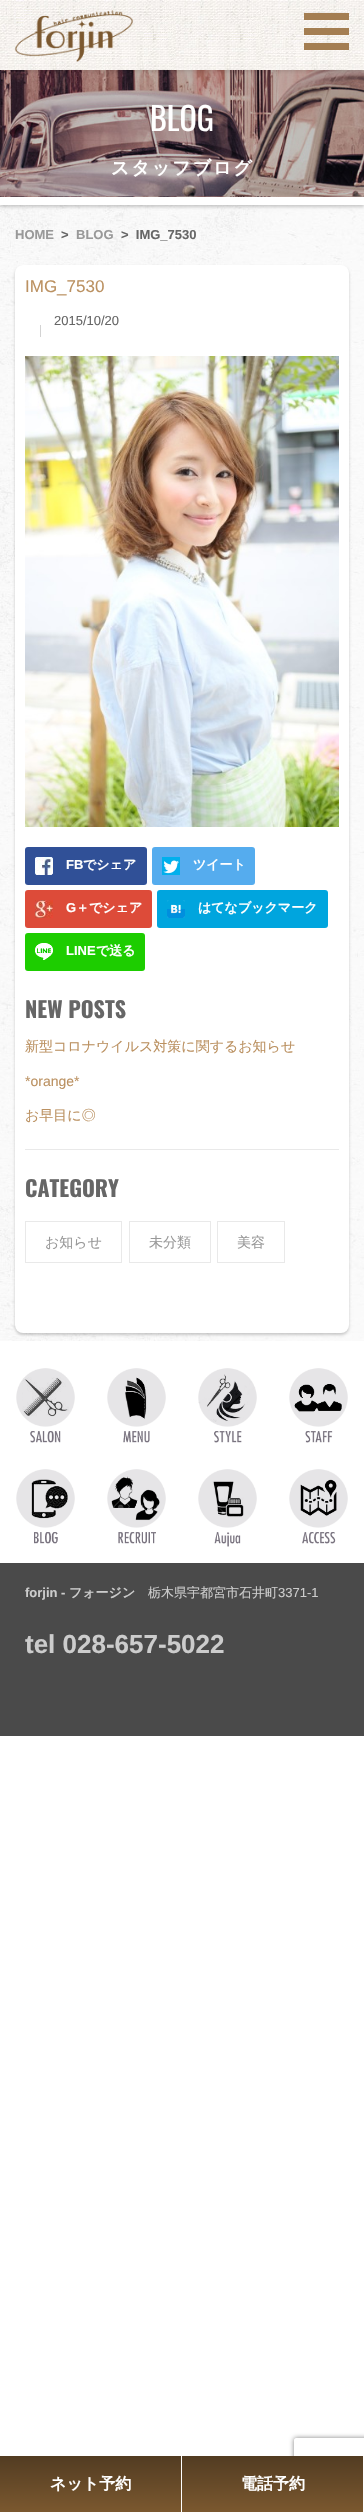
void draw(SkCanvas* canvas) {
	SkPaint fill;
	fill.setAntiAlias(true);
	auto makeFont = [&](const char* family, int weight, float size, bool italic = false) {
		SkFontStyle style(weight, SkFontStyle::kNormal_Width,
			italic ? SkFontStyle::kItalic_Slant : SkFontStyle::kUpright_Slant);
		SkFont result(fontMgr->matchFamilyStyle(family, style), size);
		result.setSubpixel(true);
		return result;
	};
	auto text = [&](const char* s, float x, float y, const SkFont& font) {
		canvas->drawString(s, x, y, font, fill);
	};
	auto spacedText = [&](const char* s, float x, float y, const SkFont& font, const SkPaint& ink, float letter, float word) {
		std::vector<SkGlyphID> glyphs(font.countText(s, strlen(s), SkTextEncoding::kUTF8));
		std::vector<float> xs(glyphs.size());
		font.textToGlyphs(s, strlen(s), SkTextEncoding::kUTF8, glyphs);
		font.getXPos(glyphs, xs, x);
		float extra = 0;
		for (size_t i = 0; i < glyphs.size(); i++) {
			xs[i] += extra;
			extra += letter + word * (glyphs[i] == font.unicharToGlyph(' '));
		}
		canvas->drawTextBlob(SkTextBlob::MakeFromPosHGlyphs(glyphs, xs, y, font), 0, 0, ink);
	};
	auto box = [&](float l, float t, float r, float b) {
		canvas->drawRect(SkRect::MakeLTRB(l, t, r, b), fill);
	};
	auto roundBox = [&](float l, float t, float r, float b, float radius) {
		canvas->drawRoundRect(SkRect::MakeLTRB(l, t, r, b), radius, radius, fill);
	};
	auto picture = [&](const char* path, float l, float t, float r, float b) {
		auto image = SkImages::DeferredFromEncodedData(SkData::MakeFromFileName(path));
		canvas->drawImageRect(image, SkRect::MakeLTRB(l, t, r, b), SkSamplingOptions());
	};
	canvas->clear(0xFFFFFFFF);
	picture("image4.png", 0, 205, 364, 1341);
	fill.setColor(0x33000000);
	fill.setMaskFilter(SkMaskFilter::MakeBlur(kNormal_SkBlurStyle, 1.5f));
	canvas->drawRect(SkRect::MakeLTRB(0, 72, 364, 207), fill);
	fill.setMaskFilter(nullptr);
	picture("image3.png", 0, 70, 364, 197);
	fill.setColor(0x1A000000);
	fill.setMaskFilter(SkMaskFilter::MakeBlur(kNormal_SkBlurStyle, 1.5f));
	canvas->drawRect(SkRect::MakeLTRB(0, 2, 364, 72), fill);
	fill.setMaskFilter(nullptr);
	picture("image0.png", 0, 0, 364, 70);
	picture("image1.png", 15, 10, 133, 62);
	picture("image2.png", 304, 13, 349, 50);
	fill.setColor(0xFFFFFFFF);
	box(0, 197, 364, 205);
	fill.setColor(0x33000000);
	fill.setMaskFilter(SkMaskFilter::MakeBlur(kNormal_SkBlurStyle, 1.5f));
	canvas->drawRoundRect(SkRect::MakeLTRB(15, 267, 349, 1335), 8, 8, fill);
	fill.setMaskFilter(nullptr);
	fill.setColor(0xFFFFFFFF);
	roundBox(15, 265, 349, 1333, 8);
	fill.setColor(0xFFD3D3D3);
	box(40, 325, 41, 337);
	picture("image5.png", 25, 356, 339, 827);
	fill.setColor(0xFF305097);
	roundBox(25, 847, 147, 885, 3);
	picture("image6.png", 35, 857, 53, 875);
	fill.setColor(0xFF55ACEE);
	roundBox(152, 847, 255, 885, 3);
	picture("image7.png", 162, 857, 180, 875);
	fill.setColor(0xFFDD4B39);
	roundBox(25, 890, 152, 928, 3);
	picture("image8.png", 35, 900, 53, 918);
	fill.setColor(0xFF00A5DE);
	roundBox(157, 890, 328, 928, 3);
	picture("image9.png", 167, 900, 185, 918);
	fill.setColor(0xFF1DCD00);
	roundBox(25, 933, 145, 971, 3);
	picture("image10.png", 35, 943, 53, 960);
	fill.setColor(0xFFE9E9E9);
	box(25, 1149, 339, 1150);
	fill.setStyle(SkPaint::kStroke_Style);
	fill.setStrokeWidth(1);
	canvas->drawRect(SkRect::MakeLTRB(25.5f, 1221.5f, 121.5f, 1262.5f), fill);
	canvas->drawRect(SkRect::MakeLTRB(129.5f, 1221.5f, 210.5f, 1262.5f), fill);
	canvas->drawRect(SkRect::MakeLTRB(217.5f, 1221.5f, 284.5f, 1262.5f), fill);
	picture("image11.png", 16, 1368, 75, 1443);
	picture("image12.png", 107, 1368, 166, 1443);
	picture("image13.png", 198, 1368, 257, 1443);
	picture("image14.png", 289, 1368, 348, 1443);
	picture("image15.png", 16, 1469, 75, 1544);
	picture("image16.png", 107, 1469, 166, 1544);
	picture("image17.png", 198, 1469, 257, 1547);
	picture("image18.png", 289, 1469, 348, 1544);
	fill.setStyle(SkPaint::kFill_Style);
	fill.setColor(0xFF4A4A4A);
	box(0, 1563, 364, 1736);
	{
		const SkColor colors[] = {0xFF7B582F, 0xFF523C22};
		const float stops[] = {0, 1};
		const SkPoint ends[] = {{91, 2512}, {91, 2456}};
		fill.setShader(SkGradientShader::MakeLinear(ends, colors, stops, 2, SkTileMode::kClamp));
		fill.setAlpha(255);
	}
	box(0, 2456, 181, 2512);
	canvas->save();
	canvas->clipPath(SkPathBuilder(SkPathFillType::kEvenOdd).moveTo(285, 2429).lineTo(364, 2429).lineTo(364, 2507).lineTo(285, 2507).close().moveTo(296, 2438).lineTo(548, 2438).cubicTo(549, 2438, 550, 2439, 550, 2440).lineTo(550, 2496).cubicTo(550, 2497, 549, 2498, 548, 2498).lineTo(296, 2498).cubicTo(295, 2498, 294, 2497, 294, 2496).lineTo(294, 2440).cubicTo(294, 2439, 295, 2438, 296, 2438).close().detach(), true);
	fill.setShader(nullptr);
	fill.setColor(0xFF808080);
	fill.setMaskFilter(SkMaskFilter::MakeBlur(kNormal_SkBlurStyle, 2.5f));
	canvas->drawRoundRect(SkRect::MakeLTRB(294, 2438, 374, 2498), 2, 2, fill);
	fill.setMaskFilter(nullptr);
	canvas->restore();
	{
		const SkColor colors[] = {0xFF7B582F, 0xFF523C22};
		const float stops[] = {0, 1};
		const SkPoint ends[] = {{273, 2512}, {273, 2456}};
		fill.setShader(SkGradientShader::MakeLinear(ends, colors, stops, 2, SkTileMode::kClamp));
		fill.setAlpha(255);
	}
	box(182, 2456, 363, 2512);
	fill.setShader(nullptr);
	fill.setColor(0xFFFFFFFF);
	box(363, 2498, 364, 2503);
	auto font1 = makeFont("Oswald", 400, 32);
	text("BLOG", 150, 131, font1);
	auto font2 = makeFont("WenQuanYi Zen Hei", 700, 18);
	spacedText("スタッフブログ", 111, 174, font2, fill, 2, 0);
	auto font3 = makeFont("Liberation Sans", 700, 13);
	fill.setColor(0xFF999999);
	text("HOME", 15, 239, font3);
	fill.setColor(0xFF666666);
	text(">", 61, 239, font3);
	fill.setColor(0xFF999999);
	text("BLOG", 76, 239, font3);
	fill.setColor(0xFF666666);
	text(">  IMG_7530", 121, 239, font3);
	auto font4 = makeFont("Liberation Sans", 400, 17);
	fill.setColor(0xFFBB9161);
	text("IMG_7530", 25, 292, font4);
	auto font5 = makeFont("Liberation Sans", 400, 13);
	fill.setColor(0xFF666666);
	text("2015/10/20", 54, 325, font5);
	fill.setColor(0xFFFFFFFF);
	text("FB", 66, 869, font3);
	auto font6 = makeFont("WenQuanYi Zen Hei", 700, 13);
	text("でシェア", 83, 869, font6);
	text("ツイート", 193, 869, font6);
	text("G", 66, 912, font3);
	text("＋でシェア", 76, 912, font6);
	text("はてなブックマーク", 198, 912, font6);
	text("LINE", 66, 955, font3);
	text("で送る", 96, 955, font6);
	auto font7 = makeFont("Oswald", 700, 22);
	fill.setColor(0xFF666666);
	text("NEW POSTS", 25, 1018, font7);
	auto font8 = makeFont("WenQuanYi Zen Hei", 500, 14);
	fill.setColor(0xFFBB9161);
	text("新型コロナウイルス対策に関するお知らせ", 25, 1051, font8);
	auto font9 = makeFont("Liberation Sans", 400, 14);
	text("*orange*", 25, 1086, font9);
	text("お早目に◎", 25, 1120, font8);
	fill.setColor(0xFF666666);
	text("CATEGORY", 25, 1197, font7);
	fill.setColor(0xFF999999);
	text("お知らせ", 45, 1247, font8);
	text("未分類", 149, 1247, font8);
	text("美容", 237, 1247, font8);
	fill.setColor(0xFFCCCCCC);
	text("forjin -", 25, 1597, font3);
	text("フォージン", 69, 1597, font6);
	auto font10 = makeFont("WenQuanYi Zen Hei", 500, 13);
	text("栃木県宇都宮市石井町", 148, 1597, font10);
	text("3371-1", 278, 1597, font5);
	auto font11 = makeFont("Liberation Sans", 700, 26);
	text("tel 028-657-5022", 25, 1653, font11);
	auto font12 = makeFont("WenQuanYi Zen Hei", 700, 16);
	fill.setColor(0xFFFFFFFF);
	text("ネット予約", 50, 2489, font12);
	text("電話予約", 241, 2489, font12);
}
